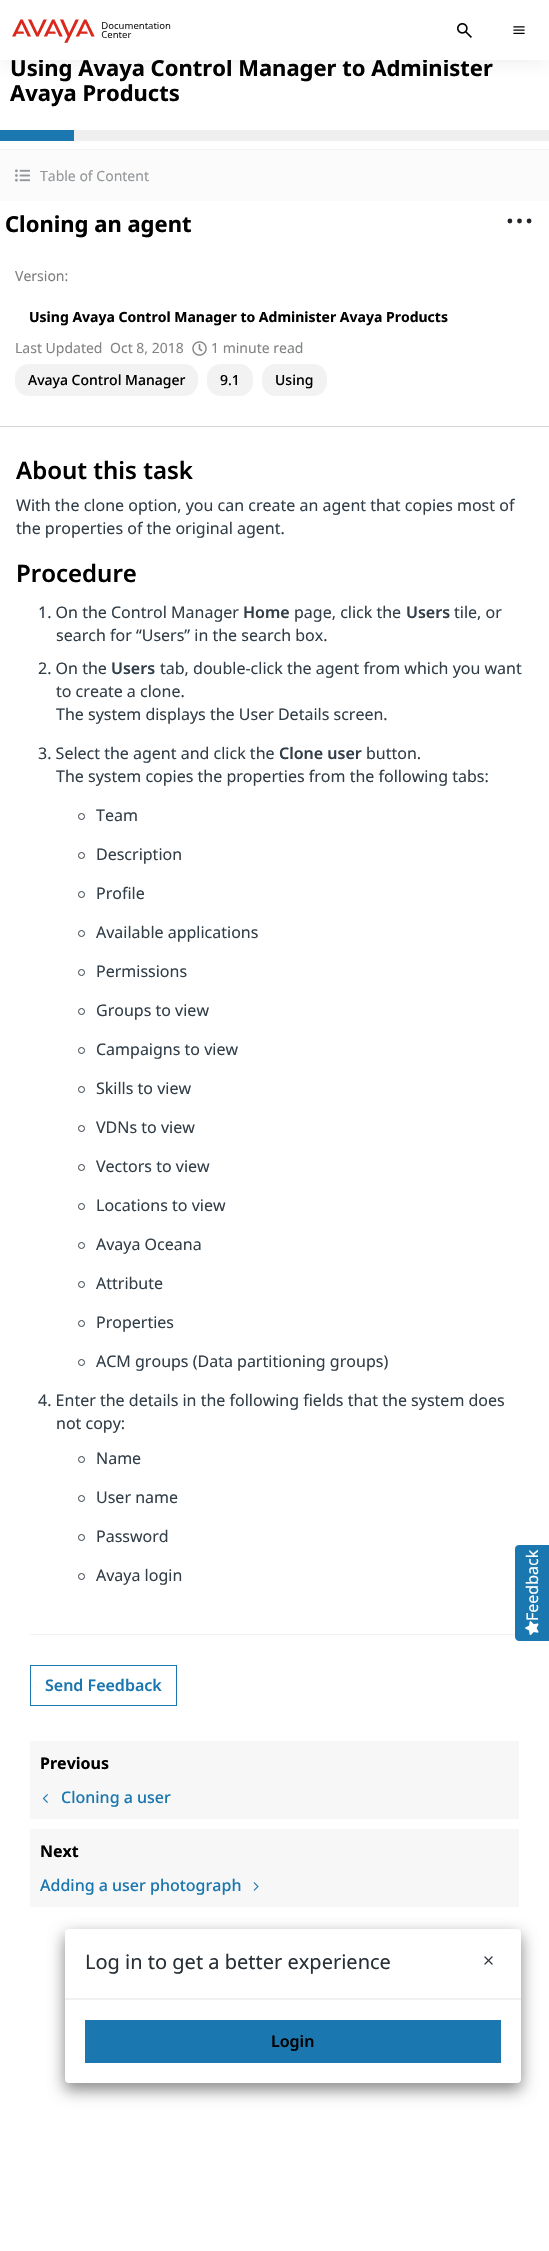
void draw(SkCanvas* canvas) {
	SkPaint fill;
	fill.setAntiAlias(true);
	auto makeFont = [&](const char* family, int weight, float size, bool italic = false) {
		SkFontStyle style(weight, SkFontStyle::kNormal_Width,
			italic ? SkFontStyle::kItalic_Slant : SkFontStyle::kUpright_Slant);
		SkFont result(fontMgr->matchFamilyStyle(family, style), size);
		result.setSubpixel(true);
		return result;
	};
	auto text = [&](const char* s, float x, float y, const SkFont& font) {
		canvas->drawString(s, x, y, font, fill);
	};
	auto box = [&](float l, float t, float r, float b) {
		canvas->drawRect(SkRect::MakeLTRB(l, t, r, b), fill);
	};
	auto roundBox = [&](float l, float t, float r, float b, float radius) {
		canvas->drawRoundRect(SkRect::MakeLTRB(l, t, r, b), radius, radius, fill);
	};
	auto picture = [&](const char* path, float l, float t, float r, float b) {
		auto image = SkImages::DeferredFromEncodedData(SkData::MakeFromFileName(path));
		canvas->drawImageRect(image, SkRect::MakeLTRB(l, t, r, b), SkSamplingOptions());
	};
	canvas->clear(0xFFFFFFFF);
	fill.setColor(0x40B5B7B3);
	fill.setMaskFilter(SkMaskFilter::MakeBlur(kNormal_SkBlurStyle, 10));
	canvas->drawRect(SkRect::MakeLTRB(0, 2, 549, 62), fill);
	fill.setMaskFilter(nullptr);
	fill.setColor(0xFF1B77AF);
	box(0, 130, 74, 141);
	fill.setColor(0xFFEFEFEF);
	box(74, 130, 549, 141);
	fill.setColor(0xFFF2F2F2);
	box(0, 149, 549, 150);
	fill.setColor(0xFFFBFBFB);
	box(0, 150, 549, 201);
	picture("image3.png", 15, 169, 30, 182);
	fill.setColor(0xFFD8D8D8);
	box(0, 426, 549, 427);
	fill.setColor(0xFF212529);
	canvas->drawCircle(509.9f, 221, 2.4f, fill);
	canvas->drawCircle(519.5f, 221, 2.4f, fill);
	canvas->drawCircle(529.1f, 221, 2.4f, fill);
	picture("image4.png", 192, 341, 207, 356);
	fill.setColor(0xFFF2F2F2);
	roundBox(15, 364, 198, 396, 14);
	roundBox(207, 364, 253, 396, 14);
	roundBox(262, 364, 327, 396, 14);
	fill.setStyle(SkPaint::kStroke_Style);
	fill.setStrokeWidth(1);
	fill.setColor(0xFF323E48);
	canvas->drawCircle(81.5f, 816.5f, 3, fill);
	canvas->drawCircle(81.5f, 855.5f, 3, fill);
	canvas->drawCircle(81.5f, 894.5f, 3, fill);
	canvas->drawCircle(81.5f, 933.5f, 3, fill);
	canvas->drawCircle(81.5f, 972.5f, 3, fill);
	canvas->drawCircle(81.5f, 1011.5f, 3, fill);
	canvas->drawCircle(81.5f, 1050.5f, 3, fill);
	canvas->drawCircle(81.5f, 1089.5f, 3, fill);
	canvas->drawCircle(81.5f, 1128.5f, 3, fill);
	canvas->drawCircle(81.5f, 1167.5f, 3, fill);
	canvas->drawCircle(81.5f, 1206.5f, 3, fill);
	canvas->drawCircle(81.5f, 1245.5f, 3, fill);
	canvas->drawCircle(81.5f, 1284.5f, 3, fill);
	canvas->drawCircle(81.5f, 1323.5f, 3, fill);
	canvas->drawCircle(81.5f, 1362.5f, 3, fill);
	canvas->drawCircle(81.5f, 1459.5f, 3, fill);
	canvas->drawCircle(81.5f, 1498.5f, 3, fill);
	canvas->drawCircle(81.5f, 1537.5f, 3, fill);
	canvas->drawCircle(81.5f, 1576.5f, 3, fill);
	fill.setStyle(SkPaint::kFill_Style);
	fill.setColor(0xFFF2F2F2);
	box(30, 1634, 519, 1635);
	fill.setStyle(SkPaint::kStroke_Style);
	fill.setColor(0xFF1B77AF);
	canvas->drawRect(SkRect::MakeLTRB(30.5f, 1665.5f, 176.5f, 1705.5f), fill);
	fill.setStyle(SkPaint::kFill_Style);
	fill.setColor(0xFFF7F7F7);
	box(30, 1741, 519, 1819);
	picture("image5.png", 42, 1794, 48, 1803);
	box(30, 1829, 519, 1907);
	picture("image6.png", 253, 1882, 259, 1891);
	fill.setColor(0x40000000);
	fill.setMaskFilter(SkMaskFilter::MakeBlur(kNormal_SkBlurStyle, 7.5f));
	canvas->drawRoundRect(SkRect::MakeLTRB(65, 1934, 521, 2088), 4, 4, fill);
	fill.setMaskFilter(nullptr);
	fill.setColor(0x45000000);
	fill.setMaskFilter(SkMaskFilter::MakeBlur(kNormal_SkBlurStyle, 8));
	canvas->drawRoundRect(SkRect::MakeLTRB(65, 1937, 521, 2091), 4, 4, fill);
	fill.setMaskFilter(nullptr);
	fill.setColor(0xFFFFFFFF);
	roundBox(65, 1929, 521, 2083, 4);
	canvas->drawPath(SkPathBuilder().moveTo(69, 1929).lineTo(517, 1929).cubicTo(519, 1929, 521, 1931, 521, 1933).lineTo(521, 1999).lineTo(65, 1999).lineTo(65, 1933).cubicTo(65, 1931, 67, 1929, 69, 1929).close().detach(), fill);
	fill.setColor(0xFFF1F1F1);
	box(65, 1998, 521, 2000);
	picture("image7.png", 484, 1956, 493, 1965);
	fill.setColor(0xFF1B77AF);
	box(85, 2020, 501, 2063);
	canvas->drawPath(SkPathBuilder().moveTo(515, 1637).lineTo(515, 1549).cubicTo(515, 1546, 517, 1545, 519, 1545).lineTo(549, 1545).lineTo(549, 1641).lineTo(519, 1641).cubicTo(517, 1641, 515, 1639, 515, 1637).close().detach(), fill);
	picture("image8.png", 525, 1621, 539, 1635);
	auto font1 = makeFont("Noto Sans", 700, 22);
	fill.setColor(0xFF000000);
	text("Using Avaya Control Manager to Administer", 10, 76, font1);
	fill.setColor(0xFFFFFFFF);
	box(0, 0, 549, 60);
	picture("image2.png", 513, 26, 525, 34);
	picture("image1.png", 457, 23, 472, 38);
	picture("image0.png", 12, 19, 171, 43);
	fill.setColor(0xFF000000);
	text("Avaya Products", 10, 101, font1);
	auto font2 = makeFont("Noto Sans", 400, 14);
	fill.setColor(0xFF93979A);
	text("Table of Content", 40, 181, font2);
	fill.setColor(0xFF000000);
	text("Cloning an agent", 5, 232, font1);
	fill.setColor(0xFF7F7F7F);
	text("Version:", 15, 281, font2);
	auto font3 = makeFont("Noto Sans", 700, 14);
	fill.setColor(0xFF000000);
	text("Using Avaya Control Manager to Administer Avaya Products", 29, 322, font3);
	fill.setColor(0xFF838486);
	text("Last Updated", 15, 353, font2);
	text("Oct 8, 2018", 110, 353, font2);
	text("1 minute read", 211, 353, font2);
	auto font4 = makeFont("Noto Sans", 500, 14);
	fill.setColor(0xFF000000);
	text("Avaya Control Manager", 28, 385, font4);
	text("9.1", 220, 385, font4);
	text("Using", 275, 385, font4);
	auto font5 = makeFont("Noto Sans", 600, 24);
	text("About this task", 16, 479, font5);
	auto font6 = makeFont("Noto Sans", 400, 16);
	fill.setColor(0xFF323E48);
	text("With the clone option, you can create an agent that copies most of", 16, 511, font6);
	text("the properties of the original agent.", 16, 534, font6);
	fill.setColor(0xFF000000);
	text("Procedure", 16, 582, font5);
	fill.setColor(0xFF323E48);
	text("1. On the Control Manager", 38, 618, font6);
	auto font7 = makeFont("Noto Sans", 600, 16);
	text("Home", 243, 618, font7);
	text("page, click the", 294, 618, font6);
	text("Users", 406, 618, font7);
	text("tile, or", 454, 618, font6);
	text("search for “Users” in the search box.", 56, 641, font6);
	text("2. On the", 38, 674, font6);
	text("Users", 111, 674, font7);
	text("tab, double-click the agent from which you want", 160, 674, font6);
	text("to create a clone.", 56, 697, font6);
	text("The system displays the User Details screen.", 56, 720, font6);
	text("3. Select the agent and click the", 38, 759, font6);
	text("Clone user", 279, 759, font7);
	text("button.", 366, 759, font6);
	text("The system copies the properties from the following tabs:", 56, 782, font6);
	text("Team", 96, 821, font6);
	text("Description", 96, 860, font6);
	text("Profile", 96, 899, font6);
	text("Available applications", 96, 938, font6);
	text("Permissions", 96, 977, font6);
	text("Groups to view", 96, 1016, font6);
	text("Campaigns to view", 96, 1055, font6);
	text("Skills to view", 96, 1094, font6);
	text("VDNs to view", 96, 1133, font6);
	text("Vectors to view", 96, 1172, font6);
	text("Locations to view", 96, 1211, font6);
	text("Avaya Oceana", 96, 1250, font6);
	text("Attribute", 96, 1289, font6);
	text("Properties", 96, 1328, font6);
	text("ACM groups (Data partitioning groups)", 96, 1367, font6);
	text("4. Enter the details in the following fields that the system does", 38, 1406, font6);
	text("not copy:", 56, 1429, font6);
	text("Name", 96, 1464, font6);
	text("User name", 96, 1503, font6);
	text("Password", 96, 1542, font6);
	text("Avaya login", 96, 1581, font6);
	fill.setColor(0xFF1B77AF);
	text("Send Feedback", 45, 1691, font7);
	auto font8 = makeFont("Noto Sans", 700, 16);
	fill.setColor(0xFF000000);
	text("Previous", 40, 1769, font8);
	auto font9 = makeFont("Noto Sans", 500, 16);
	fill.setColor(0xFF1B77AF);
	text("Cloning a user", 61, 1803, font9);
	fill.setColor(0xFF000000);
	text("Next", 40, 1857, font8);
	fill.setColor(0xFF1B77AF);
	text("Adding a user photograph", 40, 1891, font9);
	auto font10 = makeFont("Noto Sans", 400, 20);
	fill.setColor(0xFF282F36);
	text("Log in to get a better experience", 85, 1969, font10);
	fill.setColor(0xFF000000);
	text("Login", 271, 2047, font7);
	fill.setColor(0xFFFFFFFF);
	canvas->save();
	canvas->rotate(-90, 538, 1621);
	text("Feedback", 538, 1621, font6);
	canvas->restore();
}
